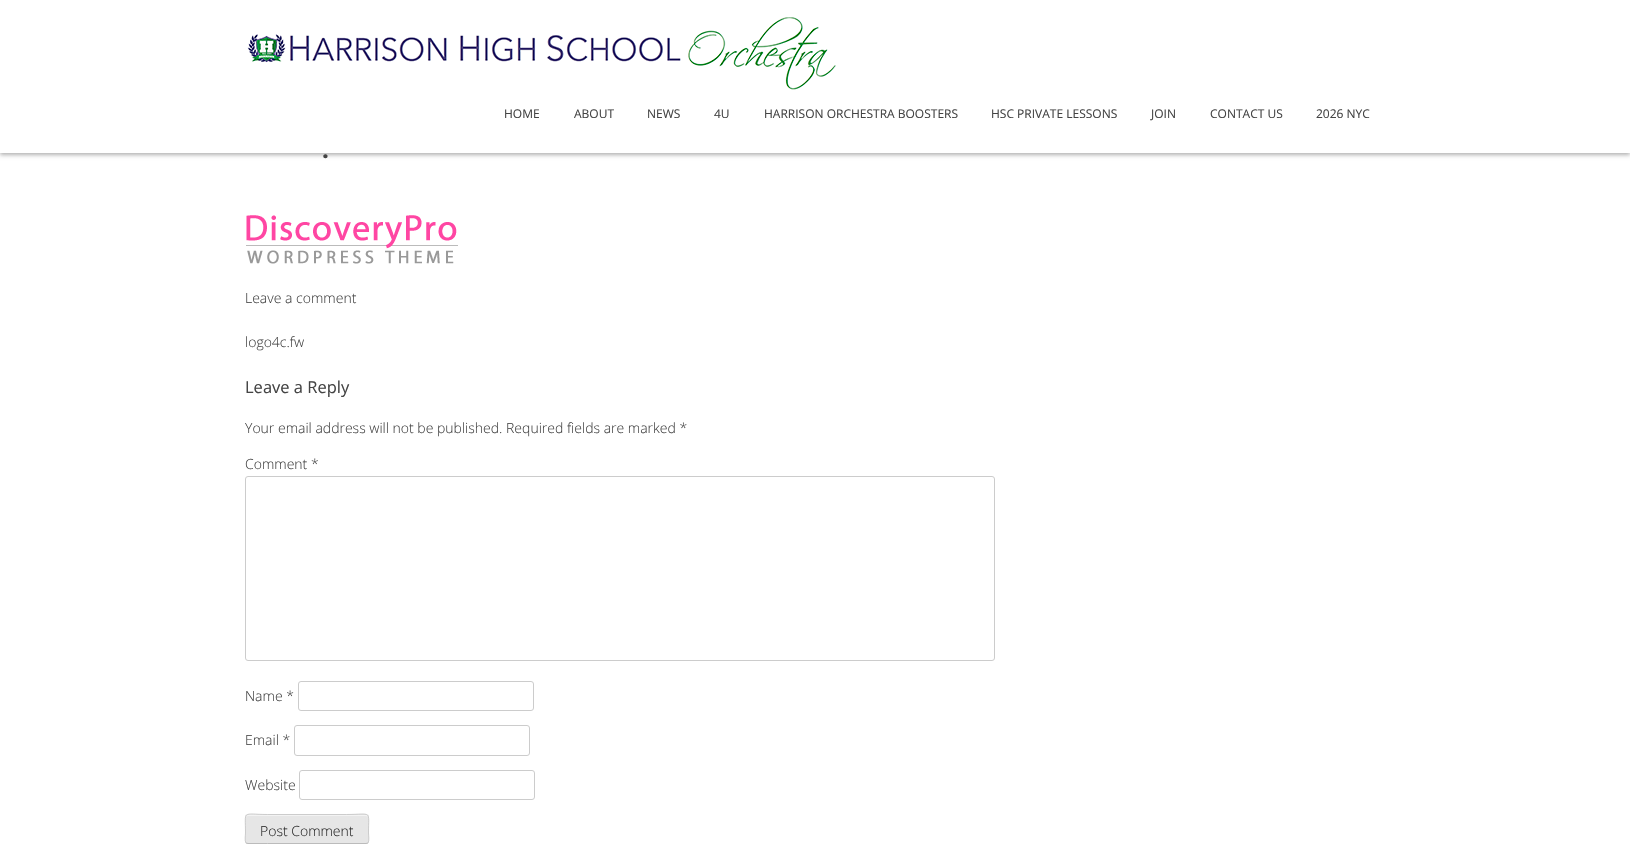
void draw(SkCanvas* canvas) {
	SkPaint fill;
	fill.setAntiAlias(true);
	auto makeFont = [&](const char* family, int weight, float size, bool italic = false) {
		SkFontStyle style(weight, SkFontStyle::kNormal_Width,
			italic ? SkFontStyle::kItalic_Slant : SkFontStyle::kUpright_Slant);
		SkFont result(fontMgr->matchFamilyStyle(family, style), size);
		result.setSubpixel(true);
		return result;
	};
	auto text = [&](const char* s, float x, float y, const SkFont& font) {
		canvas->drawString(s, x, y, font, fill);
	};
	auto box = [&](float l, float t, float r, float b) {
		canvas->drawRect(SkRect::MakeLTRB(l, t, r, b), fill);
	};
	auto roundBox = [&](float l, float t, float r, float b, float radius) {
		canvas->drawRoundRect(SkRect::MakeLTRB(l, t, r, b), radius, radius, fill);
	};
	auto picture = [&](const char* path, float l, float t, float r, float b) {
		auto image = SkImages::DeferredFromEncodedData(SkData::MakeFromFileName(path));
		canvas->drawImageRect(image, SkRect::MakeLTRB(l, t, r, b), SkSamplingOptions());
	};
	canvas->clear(0xFFFFFFFF);
	fill.setColor(0x4D000000);
	fill.setMaskFilter(SkMaskFilter::MakeBlur(kNormal_SkBlurStyle, 2));
	canvas->drawRect(SkRect::MakeLTRB(0, 2, 1630, 155), fill);
	fill.setMaskFilter(nullptr);
	fill.setColor(0xFFFFFFFF);
	box(0, 0, 1630, 153);
	picture("image0.png", 247, 17, 836, 90);
	picture("image1.png", 246, 215, 458, 264);
	fill.setStyle(SkPaint::kStroke_Style);
	fill.setStrokeWidth(1);
	fill.setColor(0xFFCCCCCC);
	canvas->drawRoundRect(SkRect::MakeLTRB(245.5f, 476.5f, 994.5f, 660.5f), 2.5f, 2.5f, fill);
	canvas->drawRoundRect(SkRect::MakeLTRB(298.5f, 681.5f, 533.5f, 710.5f), 2.5f, 2.5f, fill);
	canvas->drawRoundRect(SkRect::MakeLTRB(294.5f, 725.5f, 529.5f, 755.5f), 2.5f, 2.5f, fill);
	canvas->drawRoundRect(SkRect::MakeLTRB(299.5f, 770.5f, 534.5f, 799.5f), 2.5f, 2.5f, fill);
	fill.setStyle(SkPaint::kFill_Style);
	fill.setColor(0xFFE6E6E6);
	roundBox(245, 814, 369, 844, 3);
	fill.setColor(0xFFF3F3F3);
	canvas->drawPath(SkPathBuilder().moveTo(248, 816).lineTo(366, 816).lineTo(368, 817).lineTo(368, 818).cubicTo(368, 817, 368, 816, 367, 815).lineTo(268, 815).cubicTo(262, 815, 246, 811, 246, 818).cubicTo(246, 817, 247, 816, 248, 816).close().detach(), fill);
	fill.setStyle(SkPaint::kStroke_Style);
	fill.setColor(0xFFBBBBBB);
	canvas->drawPath(SkPathBuilder().moveTo(368, 843).lineTo(366, 843.5f).lineTo(267.5f, 843.5f).lineTo(248, 843.5f).lineTo(246, 843).detach(), fill);
	fill.setColor(0xFFCCCCCC);
	canvas->drawPath(SkPathBuilder().moveTo(246, 843).cubicTo(244.5f, 841, 245.5f, 835, 245.5f, 833).cubicTo(245.5f, 809.5f, 241.5f, 814.5f, 267.5f, 814.5f).lineTo(346.5f, 814.5f).cubicTo(372.5f, 814.5f, 368.5f, 809.5f, 368.5f, 833).cubicTo(368.5f, 835, 369.5f, 841, 368, 843).detach(), fill);
	auto font1 = makeFont("Open Sans", 400, 12);
	fill.setStyle(SkPaint::kFill_Style);
	fill.setColor(0xFF444444);
	text("HOME", 504, 118, font1);
	text("ABOUT", 574, 118, font1);
	text("NEWS", 647, 118, font1);
	text("4U", 714, 118, font1);
	text("HARRISON ORCHESTRA BOOSTERS", 764, 118, font1);
	text("HSC PRIVATE LESSONS", 991, 118, font1);
	text("JOIN", 1151, 118, font1);
	text("CONTACT US", 1210, 118, font1);
	text("2026 NYC", 1316, 118, font1);
	auto font2 = makeFont("Open Sans", 700, 24);
	text(".", 322, 158, font2);
	auto font3 = makeFont("Open Sans", 300, 14);
	text("Leave a comment", 245, 303, font3);
	text("logo4c.fw", 245, 347, font3);
	auto font4 = makeFont("Open Sans", 400, 16.5f);
	text("Leave a Reply", 245, 393, font4);
	text("Your email address will not be published. Required fields are marked *", 245, 433, font3);
	text("Comment *", 245, 469, font3);
	text("Name *", 245, 701, font3);
	text("Email *", 245, 745, font3);
	text("Website", 245, 790, font3);
	fill.setColor(0xFF2E2E2E);
	text("Post Comment", 260, 836, font3);
}
